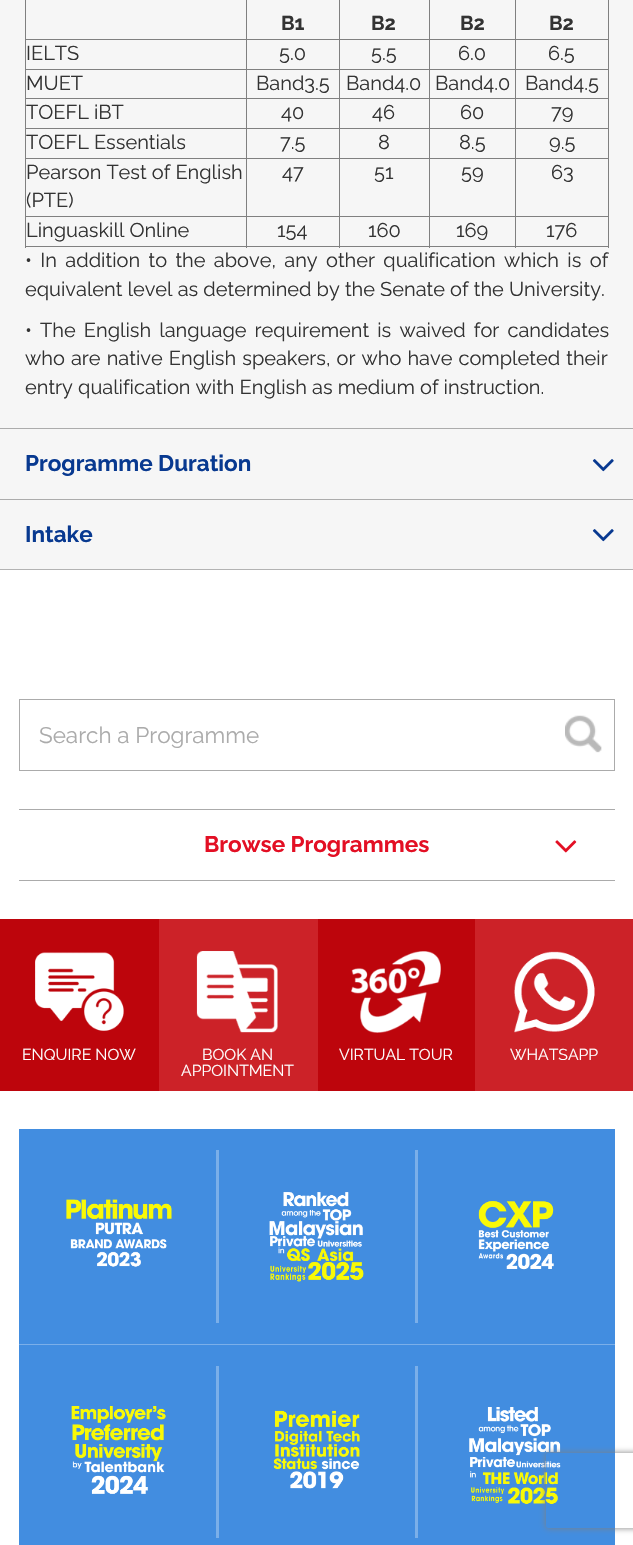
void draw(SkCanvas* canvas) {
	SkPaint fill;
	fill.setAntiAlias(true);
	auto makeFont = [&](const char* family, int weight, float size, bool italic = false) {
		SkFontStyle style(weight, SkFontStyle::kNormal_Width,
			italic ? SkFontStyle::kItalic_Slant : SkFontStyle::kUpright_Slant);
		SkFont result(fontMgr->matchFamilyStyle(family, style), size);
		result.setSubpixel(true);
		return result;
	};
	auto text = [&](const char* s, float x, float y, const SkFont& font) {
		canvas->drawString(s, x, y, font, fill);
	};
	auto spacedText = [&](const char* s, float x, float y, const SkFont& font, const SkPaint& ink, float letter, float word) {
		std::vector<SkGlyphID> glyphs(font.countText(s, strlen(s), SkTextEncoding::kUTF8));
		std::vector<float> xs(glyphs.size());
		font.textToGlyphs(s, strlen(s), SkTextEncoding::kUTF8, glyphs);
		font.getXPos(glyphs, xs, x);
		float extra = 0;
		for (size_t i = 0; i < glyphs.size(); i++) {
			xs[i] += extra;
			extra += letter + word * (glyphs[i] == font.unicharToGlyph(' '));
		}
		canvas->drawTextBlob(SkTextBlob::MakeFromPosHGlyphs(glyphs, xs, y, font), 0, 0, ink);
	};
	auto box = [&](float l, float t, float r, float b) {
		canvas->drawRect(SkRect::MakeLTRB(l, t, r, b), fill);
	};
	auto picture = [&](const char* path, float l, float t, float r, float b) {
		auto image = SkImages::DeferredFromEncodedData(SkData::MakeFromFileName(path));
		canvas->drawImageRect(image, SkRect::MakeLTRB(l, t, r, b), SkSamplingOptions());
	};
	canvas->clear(0xFFFFFFFF);
	fill.setColor(0xFFB3B3B3);
	box(0, 569, 633, 570);
	fill.setColor(0xFFF6F6F6);
	box(0, 0, 633, 428);
	fill.setColor(0xFF808080);
	box(608, 0, 609, 248);
	box(25, 246, 609, 247);
	box(25, 0, 26, 248);
	box(515, 39, 609, 40);
	box(515, 69, 609, 70);
	box(515, 98, 609, 99);
	box(515, 128, 609, 129);
	box(515, 158, 609, 159);
	box(515, 216, 609, 217);
	box(515, 216, 516, 248);
	box(429, 216, 516, 217);
	box(515, 158, 516, 218);
	box(429, 158, 516, 159);
	box(515, 128, 516, 159);
	box(429, 128, 516, 129);
	box(515, 98, 516, 129);
	box(429, 98, 516, 99);
	box(515, 69, 516, 99);
	box(429, 69, 516, 70);
	box(515, 39, 516, 70);
	box(429, 39, 516, 40);
	box(429, 216, 430, 248);
	box(339, 216, 430, 217);
	box(429, 158, 430, 218);
	box(339, 158, 430, 159);
	box(429, 128, 430, 159);
	box(339, 128, 430, 129);
	box(429, 98, 430, 129);
	box(339, 98, 430, 99);
	box(429, 69, 430, 99);
	box(339, 69, 430, 70);
	box(429, 39, 430, 70);
	box(339, 39, 430, 40);
	box(339, 216, 340, 248);
	box(246, 216, 340, 217);
	box(339, 158, 340, 218);
	box(246, 158, 340, 159);
	box(339, 128, 340, 159);
	box(246, 128, 340, 129);
	box(339, 98, 340, 129);
	box(246, 98, 340, 99);
	box(339, 69, 340, 99);
	box(246, 69, 340, 70);
	box(339, 39, 340, 70);
	box(246, 39, 340, 40);
	box(246, 216, 247, 248);
	box(25, 216, 248, 217);
	box(246, 158, 247, 218);
	box(25, 158, 248, 159);
	box(246, 128, 247, 159);
	box(25, 128, 248, 129);
	box(246, 98, 247, 129);
	box(25, 98, 248, 99);
	box(246, 69, 247, 99);
	box(25, 69, 248, 70);
	box(246, 39, 247, 70);
	box(25, 39, 248, 40);
	box(246, 0, 247, 40);
	box(339, 0, 340, 40);
	box(429, 0, 430, 40);
	box(515, 0, 516, 40);
	fill.setColor(0xFFF6F6F6);
	box(0, 429, 633, 499);
	fill.setColor(0xFFACACAC);
	box(0, 428, 633, 429);
	picture("image0.png", 592, 459, 614, 472);
	fill.setColor(0xFFF6F6F6);
	box(0, 500, 633, 569);
	fill.setColor(0xFFACACAC);
	box(0, 499, 633, 500);
	picture("image0.png", 592, 529, 614, 542);
	fill.setStyle(SkPaint::kStroke_Style);
	fill.setStrokeWidth(1);
	fill.setColor(0xFFABABAB);
	canvas->drawRect(SkRect::MakeLTRB(19.5f, 699.5f, 614.5f, 770.5f), fill);
	picture("image1.png", 565, 715, 602, 753);
	fill.setStyle(SkPaint::kFill_Style);
	box(19, 809, 615, 810);
	box(19, 880, 615, 881);
	picture("image2.png", 555, 840, 577, 853);
	fill.setColor(0xFFBD050C);
	box(0, 919, 159, 1091);
	picture("image3.png", 35, 952, 124, 1031);
	fill.setColor(0xFFCC2228);
	box(159, 919, 318, 1091);
	picture("image4.png", 196, 951, 278, 1033);
	fill.setColor(0xFFBD050C);
	box(318, 919, 475, 1091);
	picture("image5.png", 351, 951, 441, 1033);
	fill.setColor(0xFFCC2228);
	box(475, 919, 633, 1091);
	picture("image6.png", 514, 951, 595, 1033);
	fill.setColor(0xFF428DE0);
	box(19, 1129, 615, 1344);
	fill.setColor(0xFF7BAFE9);
	box(19, 1344, 615, 1345);
	picture("image7.png", 66, 1199, 172, 1267);
	box(216, 1150, 219, 1323);
	picture("image8.png", 269, 1192, 364, 1282);
	box(415, 1150, 418, 1323);
	picture("image9.png", 478, 1201, 554, 1270);
	fill.setColor(0xFF428DE0);
	box(19, 1345, 615, 1545);
	picture("image10.png", 71, 1406, 166, 1494);
	fill.setColor(0xFF7BAFE9);
	box(216, 1366, 219, 1538);
	picture("image11.png", 273, 1410, 360, 1489);
	box(415, 1366, 418, 1538);
	picture("image12.png", 469, 1407, 561, 1504);
	canvas->save();
	canvas->clipPath(SkPathBuilder(SkPathFillType::kEvenOdd).moveTo(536, 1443).lineTo(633, 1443).lineTo(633, 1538).lineTo(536, 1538).close().moveTo(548.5f, 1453).lineTo(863.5f, 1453).cubicTo(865, 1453, 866, 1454, 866, 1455.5f).lineTo(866, 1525.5f).cubicTo(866, 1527, 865, 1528, 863.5f, 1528).lineTo(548.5f, 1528).cubicTo(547, 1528, 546, 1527, 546, 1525.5f).lineTo(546, 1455.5f).cubicTo(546, 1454, 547, 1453, 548.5f, 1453).close().detach(), true);
	fill.setColor(0xFF808080);
	fill.setMaskFilter(SkMaskFilter::MakeBlur(kNormal_SkBlurStyle, 3));
	canvas->drawRoundRect(SkRect::MakeLTRB(546, 1453, 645, 1528), 2.5f, 2.5f, fill);
	fill.setMaskFilter(nullptr);
	canvas->restore();
	auto font1 = makeFont("Raleway", 700, 20);
	fill.setColor(0xFF333333);
	text("B1", 281, 30, font1);
	text("B2", 371, 30, font1);
	text("B2", 460, 30, font1);
	text("B2", 549, 30, font1);
	auto font2 = makeFont("Raleway", 400, 20);
	text("IELTS", 26, 60, font2);
	text("5.0", 279, 60, font2);
	text("5.5", 371, 60, font2);
	text("6.0", 458, 60, font2);
	text("6.5", 548, 60, font2);
	text("MUET", 26, 90, font2);
	text("Band3.5", 256, 90, font2);
	text("Band4.0", 346, 90, font2);
	text("Band4.0", 435, 90, font2);
	text("Band4.5", 525, 90, font2);
	text("TOEFL iBT", 26, 119, font2);
	text("40", 281, 119, font2);
	text("46", 372, 119, font2);
	text("60", 460, 119, font2);
	text("79", 551, 119, font2);
	text("TOEFL Essentials", 26, 149, font2);
	text("7.5", 280, 149, font2);
	text("8", 378, 149, font2);
	text("8.5", 459, 149, font2);
	text("9.5", 549, 149, font2);
	text("Pearson Test of English", 26, 179, font2);
	text("(PTE)", 26, 207, font2);
	text("47", 282, 179, font2);
	text("51", 374, 179, font2);
	text("59", 461, 179, font2);
	text("63", 551, 179, font2);
	text("Linguaskill Online", 26, 237, font2);
	text("154", 277, 237, font2);
	text("160", 368, 237, font2);
	text("169", 456, 237, font2);
	text("176", 546, 237, font2);
	spacedText("• In addition to the above, any other qualification which is of", 25, 267, font2, fill, 0, 3.25f);
	text("equivalent level as determined by the Senate of the University.", 25, 296, font2);
	spacedText("• The English language requirement is waived for candidates", 25, 337, font2, fill, 0, 3);
	spacedText("who are native English speakers, or who have completed their", 25, 365, font2, fill, 0, 1);
	text("entry qualification with English as medium of instruction.", 25, 394, font2);
	auto font3 = makeFont("Raleway", 700, 22.5f);
	fill.setColor(0xFF083990);
	text("Programme Duration", 25, 471, font3);
	text("Intake", 25, 542, font3);
	auto font4 = makeFont("Raleway", 400, 22.5f);
	fill.setColor(0xFFABABAB);
	text("Search a Programme", 39, 743, font4);
	fill.setColor(0xFFE30F24);
	text("Browse Programmes", 204, 852, font3);
	auto font5 = makeFont("Raleway", 400, 15.75f);
	fill.setColor(0xFFFFFFFF);
	text("ENQUIRE NOW", 22, 1060, font5);
	text("BOOK AN", 202, 1060, font5);
	text("APPOINTMENT", 181, 1076, font5);
	text("VIRTUAL TOUR", 339, 1060, font5);
	text("WHATSAPP", 510, 1060, font5);
}
